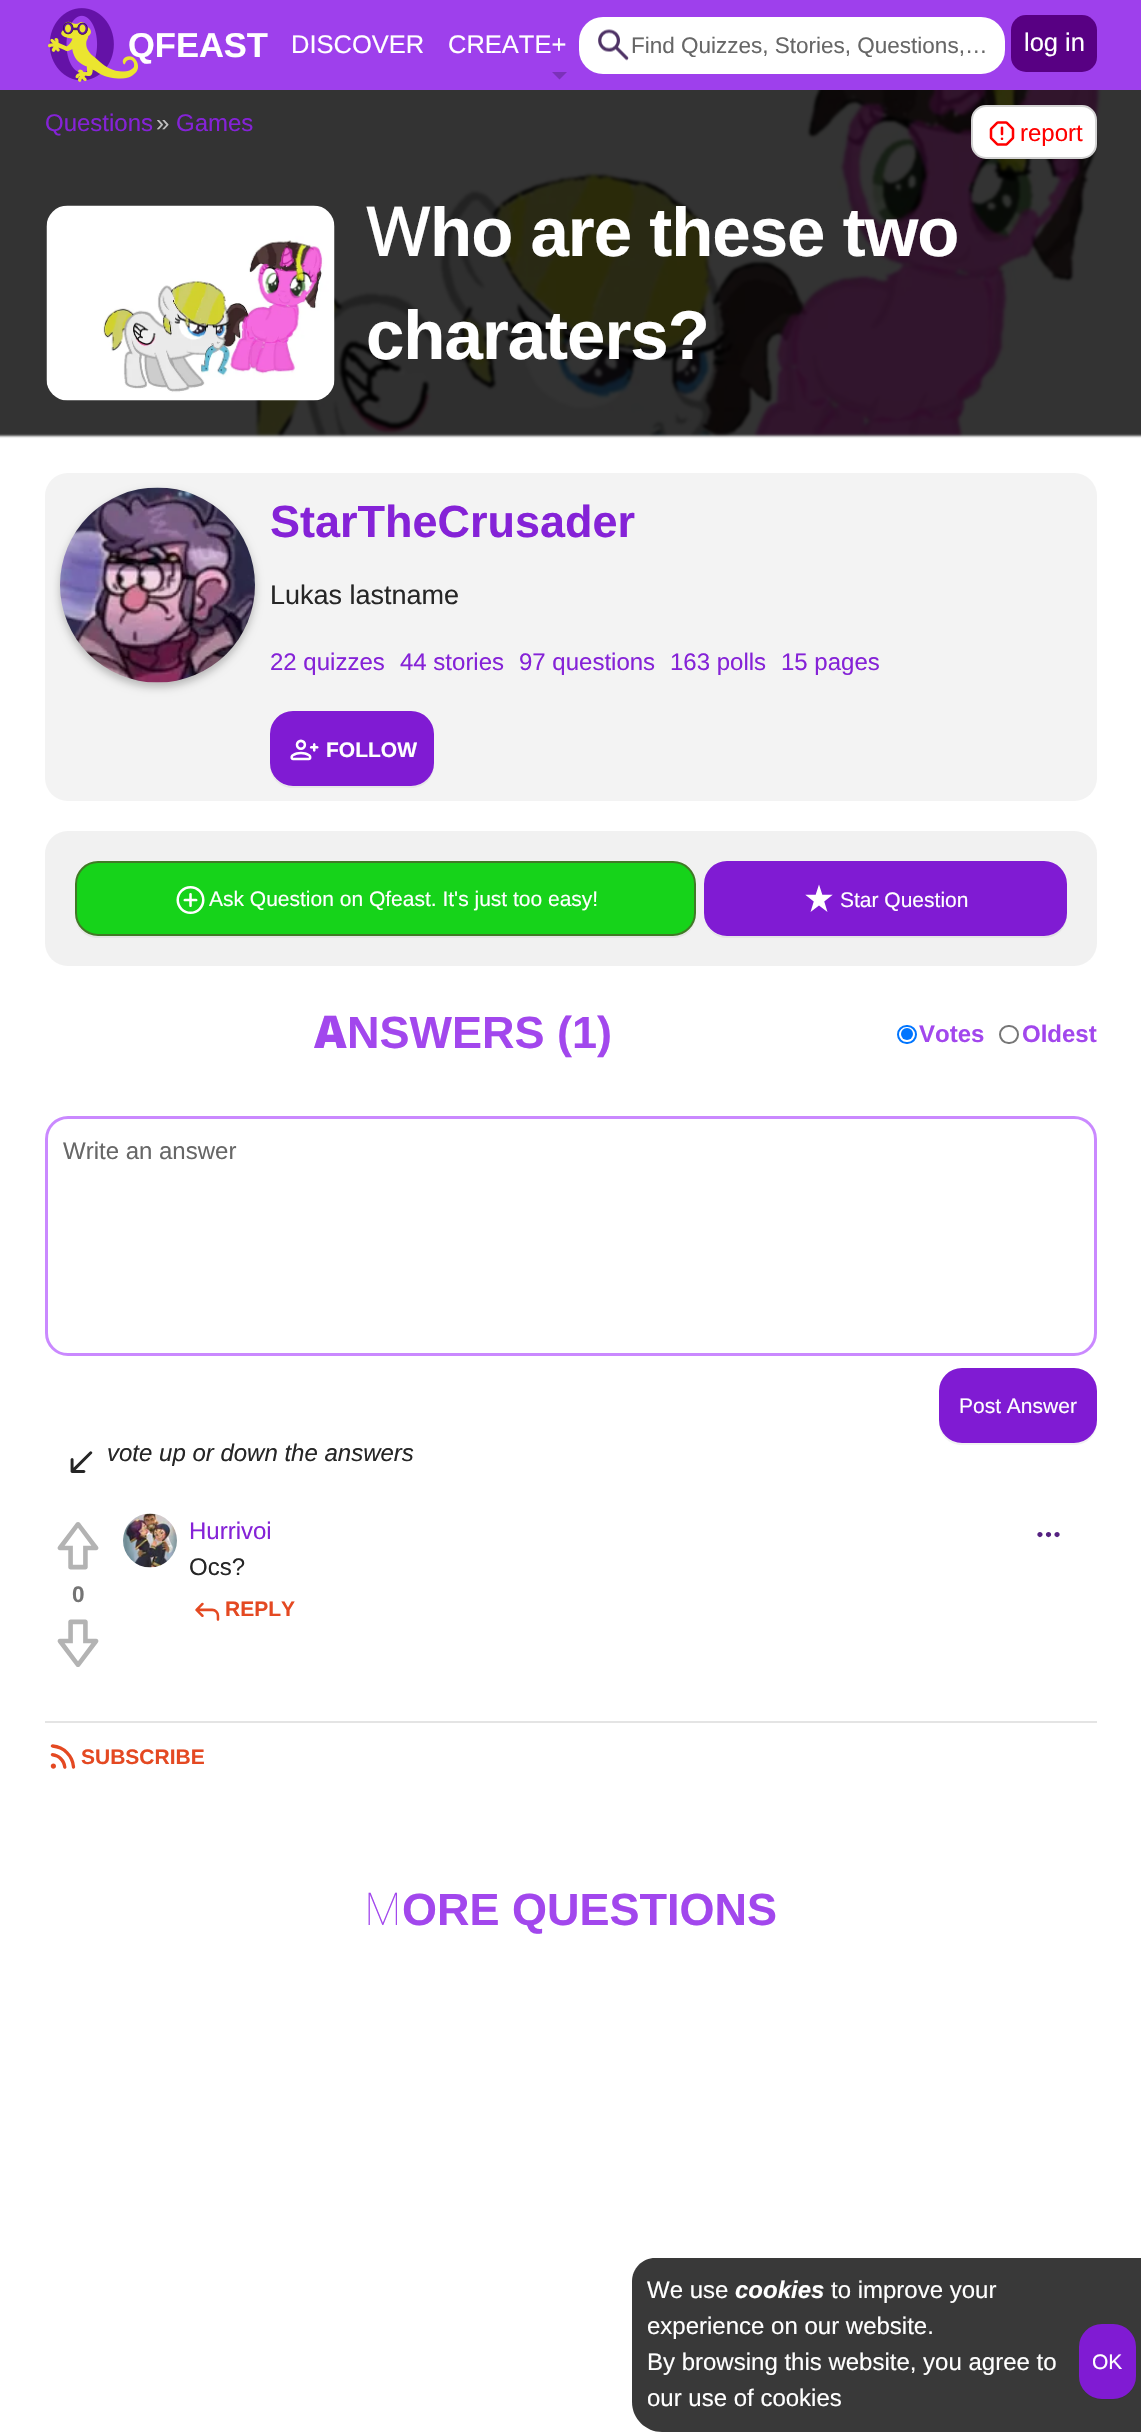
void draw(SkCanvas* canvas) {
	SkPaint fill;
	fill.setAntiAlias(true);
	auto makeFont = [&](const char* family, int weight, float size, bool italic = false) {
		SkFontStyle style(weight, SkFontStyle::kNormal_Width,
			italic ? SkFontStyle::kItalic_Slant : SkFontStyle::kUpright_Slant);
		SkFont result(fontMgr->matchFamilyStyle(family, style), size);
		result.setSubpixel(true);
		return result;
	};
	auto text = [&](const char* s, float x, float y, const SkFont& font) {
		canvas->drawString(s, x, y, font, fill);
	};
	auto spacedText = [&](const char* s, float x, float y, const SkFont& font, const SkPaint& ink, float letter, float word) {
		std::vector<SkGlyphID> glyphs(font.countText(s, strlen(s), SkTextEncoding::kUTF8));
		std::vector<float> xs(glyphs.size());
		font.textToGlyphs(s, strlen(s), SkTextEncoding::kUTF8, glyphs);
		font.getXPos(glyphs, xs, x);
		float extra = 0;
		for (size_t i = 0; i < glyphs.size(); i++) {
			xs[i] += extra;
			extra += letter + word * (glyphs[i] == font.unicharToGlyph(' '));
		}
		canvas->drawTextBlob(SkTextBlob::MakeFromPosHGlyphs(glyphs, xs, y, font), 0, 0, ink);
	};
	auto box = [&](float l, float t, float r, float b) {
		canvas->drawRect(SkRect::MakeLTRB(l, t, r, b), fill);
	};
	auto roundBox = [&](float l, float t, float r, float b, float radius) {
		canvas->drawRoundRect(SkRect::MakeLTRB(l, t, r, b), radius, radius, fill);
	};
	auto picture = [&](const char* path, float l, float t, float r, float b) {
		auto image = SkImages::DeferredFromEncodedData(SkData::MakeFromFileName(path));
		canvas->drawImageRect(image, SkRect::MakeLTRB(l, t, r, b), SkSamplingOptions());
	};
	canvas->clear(0xFFFFFFFF);
	fill.setColor(0xFF1A1A1A);
	fill.setMaskFilter(SkMaskFilter::MakeBlur(kNormal_SkBlurStyle, 1.5f));
	canvas->drawRect(SkRect::MakeLTRB(-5, 87, 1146, 435), fill);
	fill.setMaskFilter(nullptr);
	fill.setColor(0xFF9E40EC);
	box(0, 0, 1141, 90);
	picture("image0.png", 48, 8, 138, 82);
	fill.setColor(0xFF7B31B9);
	canvas->drawPath(SkPathBuilder().moveTo(552, 72).lineTo(567, 72).lineTo(559.5f, 79.5f).close().detach(), fill);
	fill.setColor(0xFFFFFFFF);
	roundBox(579, 17, 1005, 74, 24);
	picture("image1.png", 598, 29, 629, 61);
	fill.setColor(0xFF580083);
	roundBox(1011, 15, 1097, 72, 15);
	picture("image3.png", 0, 90, 1141, 438);
	fill.setColor(0xFFFFFFFF);
	canvas->drawRoundRect(SkRect::MakeLTRB(972, 106, 1096, 158), 14, 14, fill);
	fill.setStyle(SkPaint::kStroke_Style);
	fill.setStrokeWidth(2);
	fill.setColor(0xFFD3D3D3);
	canvas->drawRoundRect(SkRect::MakeLTRB(972, 106, 1096, 158), 14, 14, fill);
	picture("image2.png", 989, 121, 1015, 146);
	picture("image4.png", 46, 205, 335, 401);
	fill.setStyle(SkPaint::kFill_Style);
	fill.setColor(0xFFF3F3F3);
	roundBox(45, 473, 1097, 801, 23);
	fill.setColor(0x40000000);
	fill.setMaskFilter(SkMaskFilter::MakeBlur(kNormal_SkBlurStyle, 4.5f));
	canvas->drawRoundRect(SkRect::MakeLTRB(60, 492, 255, 687), 97.5f, 97.5f, fill);
	fill.setMaskFilter(nullptr);
	picture("image5.png", 60, 487, 255, 683);
	fill.setColor(0xFFE7E7E7);
	canvas->drawPath(SkPathBuilder().moveTo(270, 764).lineTo(270, 765).cubicTo(270, 778, 280, 788, 293, 788).lineTo(411, 788).cubicTo(424, 788, 434, 778, 434, 765).lineTo(434, 736).lineTo(433, 730).lineTo(434, 764).cubicTo(434, 776, 423, 786, 411, 786).lineTo(292, 786).cubicTo(280, 786, 270, 776, 270, 764).close().detach(), fill);
	fill.setColor(0xFF801BD3);
	canvas->drawRoundRect(SkRect::MakeLTRB(271, 712, 433, 785), 22, 22, fill);
	fill.setStyle(SkPaint::kStroke_Style);
	canvas->drawRoundRect(SkRect::MakeLTRB(271, 712, 433, 785), 22, 22, fill);
	picture("image6.png", 290, 739, 319, 761);
	fill.setStyle(SkPaint::kFill_Style);
	fill.setColor(0xFFF1F1F1);
	roundBox(45, 831, 1097, 966, 23);
	fill.setColor(0xFFE5E5E5);
	canvas->drawPath(SkPathBuilder().moveTo(75, 914).lineTo(75, 915).cubicTo(75, 928, 85, 938, 98, 938).lineTo(673, 938).cubicTo(686, 938, 696, 928, 696, 915).lineTo(696, 914).cubicTo(696, 926, 686, 936, 674, 936).lineTo(98, 936).cubicTo(85, 936, 75, 926, 75, 914).close().detach(), fill);
	fill.setColor(0xFF16D31A);
	canvas->drawRoundRect(SkRect::MakeLTRB(76, 862, 695, 935), 22, 22, fill);
	fill.setStyle(SkPaint::kStroke_Style);
	fill.setColor(0xFF407A26);
	canvas->drawRoundRect(SkRect::MakeLTRB(76, 862, 695, 935), 22, 22, fill);
	picture("image7.png", 176, 886, 205, 914);
	fill.setStyle(SkPaint::kFill_Style);
	fill.setColor(0xFFE5E5E5);
	canvas->drawPath(SkPathBuilder().moveTo(705, 921).cubicTo(708, 931, 716, 938, 727, 938).lineTo(1044, 938).cubicTo(1057, 938, 1067, 928, 1067, 915).lineTo(1067, 886).lineTo(1066, 880).lineTo(1066, 914).cubicTo(1066, 926, 1056, 936, 1044, 936).lineTo(726, 936).cubicTo(716, 936, 708, 930, 705, 921).close().detach(), fill);
	fill.setColor(0xFF801BD3);
	canvas->drawRoundRect(SkRect::MakeLTRB(705, 862, 1066, 935), 22, 22, fill);
	fill.setStyle(SkPaint::kStroke_Style);
	canvas->drawRoundRect(SkRect::MakeLTRB(705, 862, 1066, 935), 22, 22, fill);
	picture("image8.png", 805, 884, 833, 912);
	fill.setColor(0xFF0075FF);
	canvas->drawRoundRect(SkRect::MakeLTRB(898, 1026, 916, 1043), 8.5f, 8.5f, fill);
	fill.setStyle(SkPaint::kFill_Style);
	canvas->drawCircle(907, 1034, 6, fill);
	fill.setStyle(SkPaint::kStroke_Style);
	fill.setColor(0xFF767676);
	canvas->drawRoundRect(SkRect::MakeLTRB(1000, 1026, 1018, 1043), 8.5f, 8.5f, fill);
	fill.setStrokeWidth(3);
	fill.setColor(0xFFCA89FF);
	canvas->drawRoundRect(SkRect::MakeLTRB(46.5f, 1117.5f, 1095.5f, 1354.5f), 21.5f, 21.5f, fill);
	fill.setStyle(SkPaint::kFill_Style);
	fill.setColor(0xFFF2F2F2);
	canvas->drawPath(SkPathBuilder().moveTo(939, 1420).lineTo(939, 1422).cubicTo(939, 1435, 949, 1445, 962, 1445).lineTo(1074, 1445).cubicTo(1087, 1445, 1097, 1435, 1097, 1422).lineTo(1097, 1393).lineTo(1096, 1387).lineTo(1096, 1420).cubicTo(1096, 1433, 1086, 1443, 1074, 1443).lineTo(962, 1443).cubicTo(949, 1443, 939, 1433, 939, 1420).close().detach(), fill);
	fill.setColor(0xFF801BD3);
	canvas->drawRoundRect(SkRect::MakeLTRB(940, 1369, 1096, 1442), 22, 22, fill);
	fill.setStyle(SkPaint::kStroke_Style);
	fill.setStrokeWidth(2);
	canvas->drawRoundRect(SkRect::MakeLTRB(940, 1369, 1096, 1442), 22, 22, fill);
	picture("image9.png", 70, 1451, 93, 1473);
	picture("image10.png", 123, 1513, 177, 1568);
	picture("image11.png", 195, 1602, 220, 1621);
	picture("image12.png", 1037, 1532, 1060, 1538);
	picture("image13.png", 57, 1522, 99, 1570);
	picture("image14.png", 57, 1619, 99, 1667);
	fill.setStyle(SkPaint::kFill_Style);
	fill.setColor(0xFFE4E4E4);
	box(45, 1721, 1097, 1723);
	picture("image15.png", 50, 1744, 76, 1769);
	fill.setColor(0xFF393939);
	canvas->drawPath(SkPathBuilder().moveTo(655, 2258).lineTo(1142, 2258).lineTo(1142, 2432).lineTo(662, 2432).cubicTo(645.5f, 2432, 632, 2418.5f, 632, 2402).lineTo(632, 2281).cubicTo(632, 2268.5f, 642.5f, 2258, 655, 2258).close().detach(), fill);
	fill.setColor(0xFF363636);
	canvas->drawPath(SkPathBuilder().moveTo(1081, 2386).cubicTo(1084, 2394, 1092, 2400, 1102, 2400).lineTo(1113, 2400).cubicTo(1126, 2400, 1136, 2390, 1136, 2377).lineTo(1136, 2348).lineTo(1135, 2341).lineTo(1136, 2346).lineTo(1136, 2376).cubicTo(1136, 2388, 1125, 2398, 1113, 2398).lineTo(1101, 2398).cubicTo(1092, 2398, 1084, 2393, 1081, 2386).close().detach(), fill);
	fill.setColor(0xFF801BD3);
	canvas->drawRoundRect(SkRect::MakeLTRB(1080, 2325, 1135, 2398), 22, 22, fill);
	fill.setStyle(SkPaint::kStroke_Style);
	canvas->drawRoundRect(SkRect::MakeLTRB(1080, 2325, 1135, 2398), 22, 22, fill);
	auto font1 = makeFont("Liberation Sans", 700, 34.5f);
	fill.setStyle(SkPaint::kFill_Style);
	fill.setColor(0xFFFFFFFF);
	text("QFEAST", 128, 57, font1);
	auto font2 = makeFont("Liberation Sans", 400, 25.5f);
	text("DISCOVER", 291, 53, font2);
	text("CREATE+", 448, 53, font2);
	canvas->save();
	canvas->clipRect(SkRect::MakeLTRB(632, 32, 990, 57));
	auto font3 = makeFont("Liberation Sans", 400, 22.5f);
	fill.setColor(0xFF676767);
	text("Find Quizzes, Stories, Questions,…", 631, 53, font3);
	canvas->restore();
	fill.setColor(0xFFFFFFFF);
	text("log in", 1024, 51, font2);
	auto font4 = makeFont("Liberation Sans", 400, 24);
	fill.setColor(0xFF8522D7);
	text("Questions", 45, 131, font4);
	fill.setColor(0xFFBFBFBF);
	text("»", 156, 131, font4);
	fill.setColor(0xFF8522D7);
	text("Games", 176, 131, font4);
	fill.setColor(0xFFFF0000);
	text("report", 1020, 141, font4);
	auto font5 = makeFont("Noto Sans", 500, 69);
	fill.setColor(0xFFFFFFFF);
	spacedText("W", 366, 256, font5, fill, -1, 0);
	auto font6 = makeFont("Liberation Sans", 700, 69);
	spacedText("ho are these two", 430, 256, font6, fill, -1, 0);
	spacedText("charaters?", 366, 359, font6, fill, -1, 0);
	auto font7 = makeFont("Liberation Sans", 700, 45);
	fill.setColor(0xFF8522D7);
	text("StarTheCrusader", 270, 537, font7);
	auto font8 = makeFont("Liberation Sans", 400, 27);
	fill.setColor(0xFF262626);
	text("Lukas lastname", 270, 604, font8);
	fill.setColor(0xFF8522D7);
	text("22 quizzes", 270, 670, font4);
	text("44 stories", 400, 670, font4);
	text("97 questions", 519, 670, font4);
	text("163 polls", 670, 670, font4);
	text("15 pages", 781, 670, font4);
	auto font9 = makeFont("Liberation Sans", 700, 21);
	fill.setColor(0xFFFFFFFF);
	text("FOLLOW", 326, 757, font9);
	auto font10 = makeFont("Liberation Sans", 400, 21);
	text("Ask Question on Qfeast. It's just too easy!", 209, 906, font10);
	text("Star Question", 840, 907, font10);
	auto font11 = makeFont("Noto Sans", 900, 45);
	fill.setColor(0xFFA247ED);
	text("A", 314, 1048, font11);
	text("NSWERS (1)", 347, 1048, font7);
	auto font12 = makeFont("Liberation Sans", 700, 24);
	text("Votes", 919, 1042, font12);
	text("Oldest", 1022, 1042, font12);
	fill.setColor(0xFF676767);
	text("Write an answer", 63, 1159, font4);
	fill.setColor(0xFFFFFFFF);
	text("Post Answer", 959, 1413, font10);
	auto font13 = makeFont("Liberation Sans", 400, 24, true);
	fill.setColor(0xFF262626);
	text("vote up or down the answers", 107, 1461, font13);
	fill.setColor(0xFF8522D7);
	text("Hurrivoi", 189, 1539, font4);
	fill.setColor(0xFF262626);
	text("Ocs?", 189, 1575, font4);
	fill.setColor(0xFFE44922);
	text("REPLY", 225, 1616, font9);
	auto font14 = makeFont("Liberation Sans", 700, 22.5f);
	fill.setColor(0xFF747474);
	text("0", 72, 1602, font14);
	fill.setColor(0xFFE44922);
	text("SUBSCRIBE", 81, 1764, font9);
	auto font15 = makeFont("Noto Sans", 100, 45);
	fill.setColor(0xFFA247ED);
	text("M", 364, 1925, font15);
	text("ORE QUESTIONS", 402, 1925, font7);
	fill.setColor(0xFFFFFFFF);
	text("We use", 647, 2298, font4);
	auto font16 = makeFont("Liberation Sans", 700, 24, true);
	text("cookies", 735, 2298, font16);
	text("to improve your", 831, 2298, font4);
	text("experience on our website.", 647, 2334, font4);
	text("By browsing this website, you agree to", 647, 2370, font4);
	text("our use of cookies", 647, 2406, font4);
	text("OK", 1092, 2369, font10);
}
